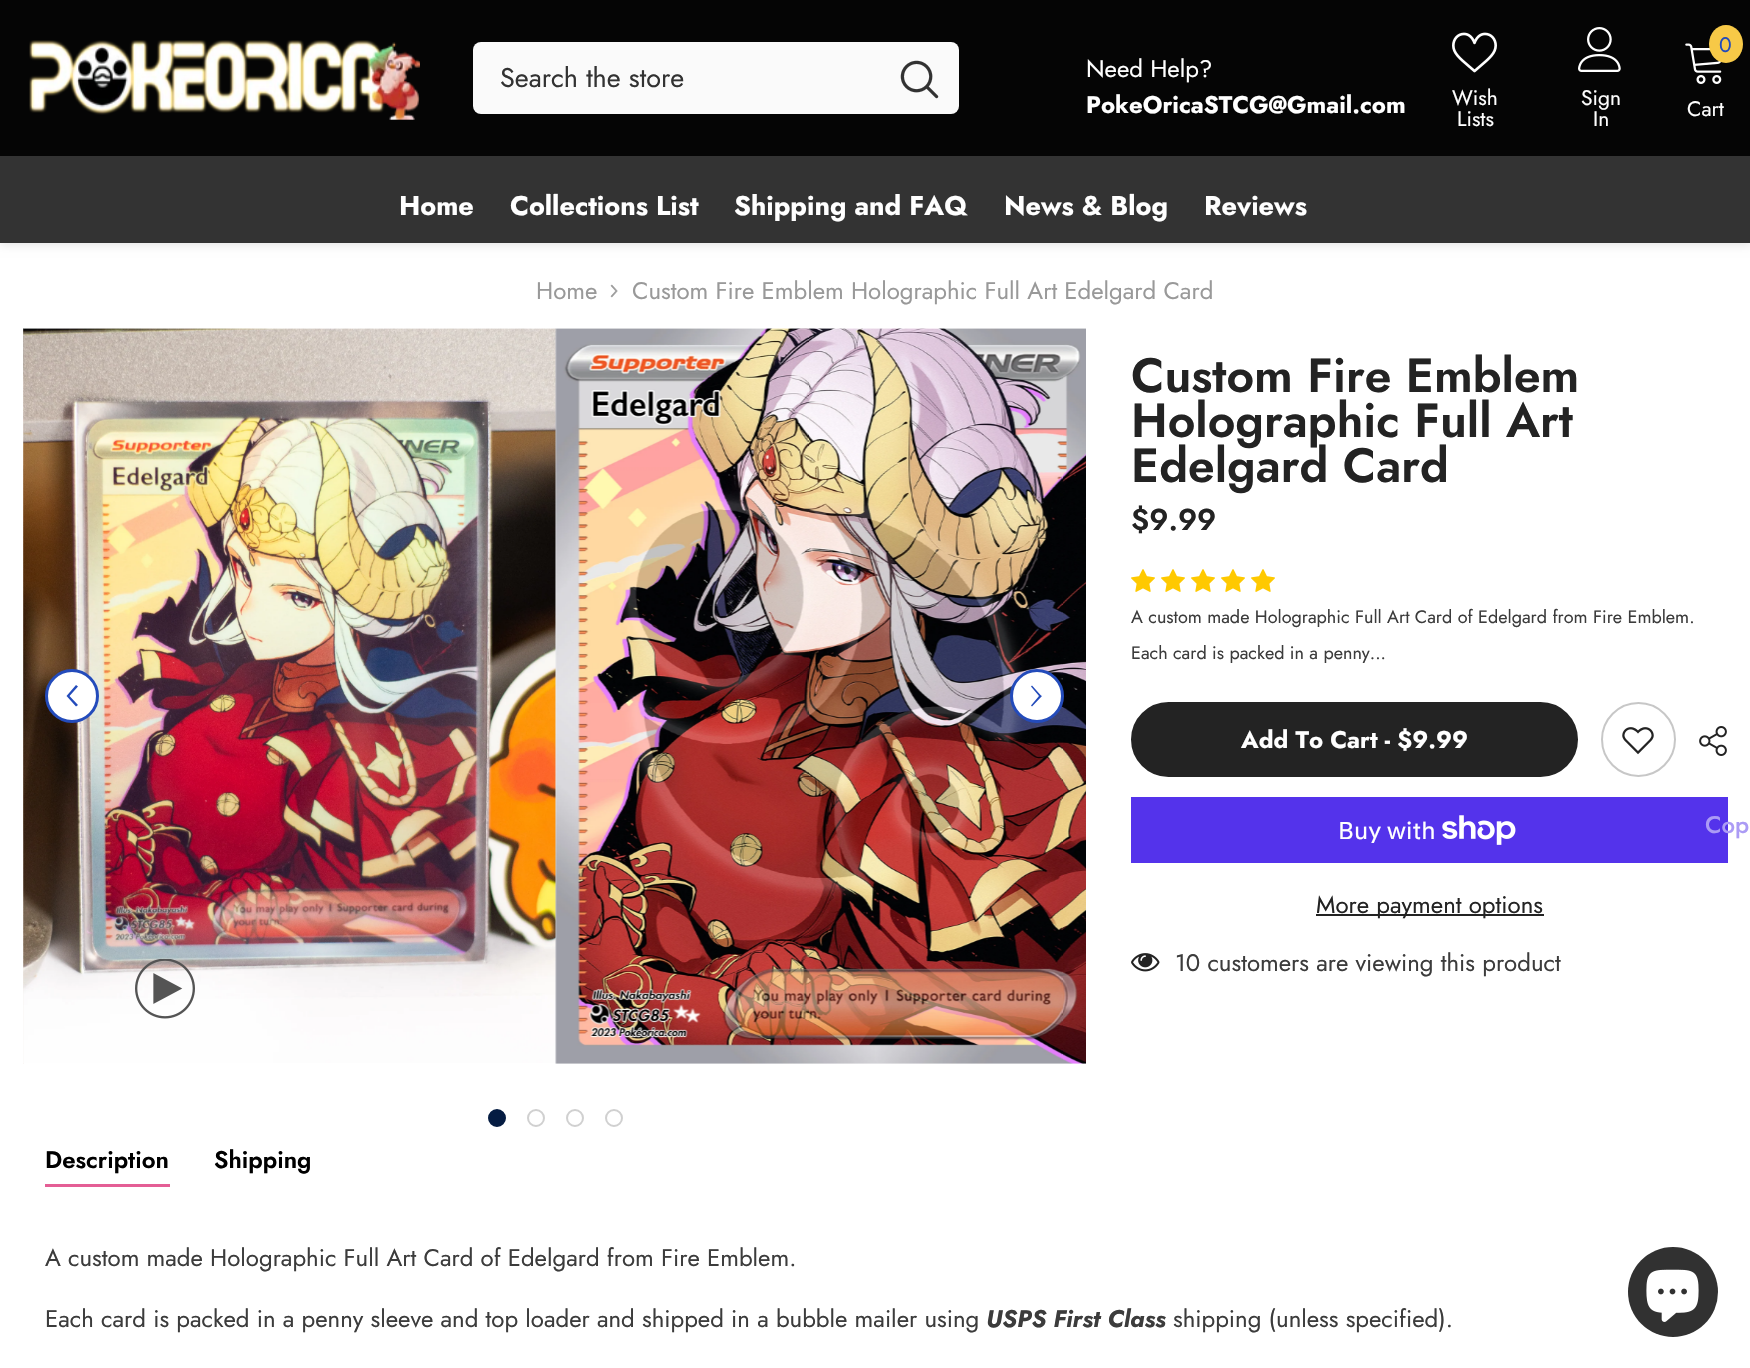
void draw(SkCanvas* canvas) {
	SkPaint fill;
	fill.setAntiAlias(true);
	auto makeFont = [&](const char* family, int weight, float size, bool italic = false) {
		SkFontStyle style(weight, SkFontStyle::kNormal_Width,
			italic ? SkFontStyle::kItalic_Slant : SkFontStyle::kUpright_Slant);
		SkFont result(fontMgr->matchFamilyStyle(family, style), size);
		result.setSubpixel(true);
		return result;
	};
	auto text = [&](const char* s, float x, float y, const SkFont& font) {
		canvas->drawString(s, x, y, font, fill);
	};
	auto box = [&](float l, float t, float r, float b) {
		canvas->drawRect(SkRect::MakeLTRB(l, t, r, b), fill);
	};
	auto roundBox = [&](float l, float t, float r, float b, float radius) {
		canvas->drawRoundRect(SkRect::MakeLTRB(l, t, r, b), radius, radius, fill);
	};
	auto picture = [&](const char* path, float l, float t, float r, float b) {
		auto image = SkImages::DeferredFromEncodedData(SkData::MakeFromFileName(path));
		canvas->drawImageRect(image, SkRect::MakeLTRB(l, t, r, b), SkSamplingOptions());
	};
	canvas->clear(0xFFFFFFFF);
	fill.setColor(0x1A000000);
	fill.setMaskFilter(SkMaskFilter::MakeBlur(kNormal_SkBlurStyle, 4.5f));
	canvas->drawRect(SkRect::MakeLTRB(0, 158, 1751, 245), fill);
	fill.setMaskFilter(nullptr);
	fill.setColor(0xFF050505);
	box(0, 0, 1750, 156);
	picture("image0.png", 29, 40, 420, 120);
	fill.setColor(0xFFFAFAFA);
	roundBox(473, 42, 959, 114, 8);
	picture("image1.png", 900, 60, 939, 99);
	picture("image2.png", 1685, 43, 1722, 84);
	fill.setColor(0xFFF7C947);
	canvas->drawOval(SkRect::MakeLTRB(1709, 25, 1743, 63), fill);
	picture("image3.png", 1452, 32, 1497, 73);
	picture("image4.png", 1578, 27, 1621, 72);
	fill.setColor(0xFF333333);
	box(0, 156, 1750, 243);
	picture("image5.png", 610, 284, 618, 298);
	picture("image6.png", 23, 328, 24, 1064);
	picture("image7.png", 23, 328, 556, 1063);
	picture("image8.png", 555, 328, 1086, 1064);
	fill.setColor(0xFFFFFFFF);
	canvas->drawCircle(72, 696, 25.5f, fill);
	fill.setStyle(SkPaint::kStroke_Style);
	fill.setStrokeWidth(3);
	fill.setColor(0xFF234BBB);
	canvas->drawCircle(72, 696, 25.5f, fill);
	fill.setStyle(SkPaint::kFill_Style);
	canvas->drawPath(SkPathBuilder().moveTo(76, 706.5f).lineTo(78, 705).lineTo(69.5f, 696).lineTo(78, 686.5f).lineTo(76, 685).lineTo(66.5f, 696).lineTo(67, 696.5f).close().detach(), fill);
	fill.setColor(0xFFFFFFFF);
	canvas->drawCircle(1037, 696, 25.5f, fill);
	fill.setStyle(SkPaint::kStroke_Style);
	fill.setColor(0xFF234BBB);
	canvas->drawCircle(1037, 696, 25.5f, fill);
	fill.setStyle(SkPaint::kFill_Style);
	canvas->drawPath(SkPathBuilder().moveTo(1032, 685.5f).lineTo(1031, 686.5f).lineTo(1039, 696).lineTo(1031, 705.5f).lineTo(1032, 706.5f).lineTo(1042, 696).lineTo(1041, 695.5f).close().detach(), fill);
	fill.setColor(0xFF051C42);
	canvas->drawCircle(497, 1118, 8, fill);
	fill.setStyle(SkPaint::kStroke_Style);
	fill.setStrokeWidth(2);
	canvas->drawCircle(497, 1118, 8, fill);
	fill.setColor(0xFFD0D0D0);
	canvas->drawCircle(536, 1118, 8, fill);
	canvas->drawCircle(575, 1118, 8, fill);
	canvas->drawCircle(614, 1118, 8, fill);
	picture("image9.png", 135, 959, 195, 1019);
	picture("image10.png", 1131, 569, 1155, 592);
	picture("image10.png", 1161, 569, 1185, 592);
	picture("image10.png", 1191, 569, 1215, 592);
	picture("image10.png", 1221, 569, 1245, 592);
	picture("image10.png", 1251, 569, 1275, 592);
	fill.setStyle(SkPaint::kFill_Style);
	fill.setColor(0xFF232323);
	canvas->drawRoundRect(SkRect::MakeLTRB(1132, 703, 1577, 776), 36.5f, 36.5f, fill);
	fill.setStyle(SkPaint::kStroke_Style);
	canvas->drawRoundRect(SkRect::MakeLTRB(1132, 703, 1577, 776), 36.5f, 36.5f, fill);
	fill.setColor(0xFFC7C7C7);
	canvas->drawCircle(1638.5f, 739.5f, 36.5f, fill);
	picture("image11.png", 1622, 727, 1654, 755);
	picture("image12.png", 1699, 726, 1727, 756);
	fill.setStyle(SkPaint::kFill_Style);
	fill.setColor(0xFF5433EB);
	box(1131, 797, 1728, 863);
	picture("image13.png", 1442, 815, 1516, 845);
	fill.setColor(0xFF232323);
	box(1316, 914, 1544, 916);
	picture("image14.png", 1131, 953, 1160, 972);
	fill.setColor(0xFFE45E95);
	box(45, 1184, 170, 1187);
	fill.setColor(0xFF313131);
	canvas->drawCircle(1673, 1292, 45, fill);
	picture("image15.png", 1646, 1269, 1699, 1322);
	auto font1 = makeFont("Jost", 400, 27);
	fill.setColor(0xFF323232);
	text("Search the store", 500, 87, font1);
	auto font2 = makeFont("Jost", 400, 24);
	fill.setColor(0xFFFFFFFF);
	text("Need Help?", 1086, 77, font2);
	auto font3 = makeFont("Jost", 700, 24);
	text("PokeOricaSTCG@Gmail.com", 1086, 113, font3);
	auto font4 = makeFont("Jost", 400, 21);
	fill.setColor(0xFF234BBB);
	text("0", 1719, 52, font4);
	fill.setColor(0xFFFFFFFF);
	text("Cart", 1687, 116, font4);
	text("Wish", 1452, 105, font4);
	text("Lists", 1457, 126, font4);
	text("Sign", 1581, 105, font4);
	text("In", 1593, 126, font4);
	auto font5 = makeFont("Jost", 700, 27);
	text("Home", 399, 215, font5);
	text("Collections List", 510, 215, font5);
	text("Shipping and FAQ", 734, 215, font5);
	text("News & Blog", 1004, 215, font5);
	text("Reviews", 1204, 215, font5);
	fill.setColor(0xFF999999);
	text("Home", 536, 299, font2);
	text("Custom Fire Emblem Holographic Full Art Edelgard Card", 632, 299, font2);
	auto font6 = makeFont("Jost", 600, 48);
	fill.setColor(0xFF232323);
	text("Custom Fire Emblem", 1131, 392, font6);
	text("Holographic Full Art", 1131, 437, font6);
	text("Edelgard Card", 1131, 482, font6);
	auto font7 = makeFont("Jost", 600, 30);
	text("$9.99", 1131, 530, font7);
	auto font8 = makeFont("Jost", 400, 18);
	fill.setColor(0xFF3C3C3C);
	text("A custom made Holographic Full Art Card of Edelgard from Fire Emblem.", 1131, 623, font8);
	text("Each card is packed in a penny...", 1131, 659, font8);
	fill.setColor(0xFFFFFFFF);
	text("Add To Cart - $9.99", 1241, 748, font3);
	auto font9 = makeFont("Jost", 500, 24);
	fill.setColor(0xFFAB9BF5);
	text("Cop", 1705, 833, font9);
	auto font10 = makeFont("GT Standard", 400, 24);
	fill.setColor(0xFFFFFFFF);
	text("Buy with", 1338, 839, font10);
	fill.setColor(0xFF232323);
	text("More payment options", 1316, 913, font2);
	fill.setColor(0xFF3C3C3C);
	text("10 customers are viewing this product", 1175, 971, font2);
	auto font11 = makeFont("Jost", 600, 24);
	fill.setColor(0xFF000000);
	text("Description", 45, 1168, font11);
	text("Shipping", 214, 1168, font11);
	fill.setColor(0xFF3C3C3C);
	text("A custom made Holographic Full Art Card of Edelgard from Fire Emblem.", 45, 1266, font2);
	text("Each card is packed in a penny sleeve and top loader and shipped in a bubble mailer using", 45, 1327, font2);
	auto font12 = makeFont("Jost", 700, 24, true);
	text("USPS First Class", 986, 1327, font12);
	text("shipping (unless specified).", 1173, 1327, font2);
}
